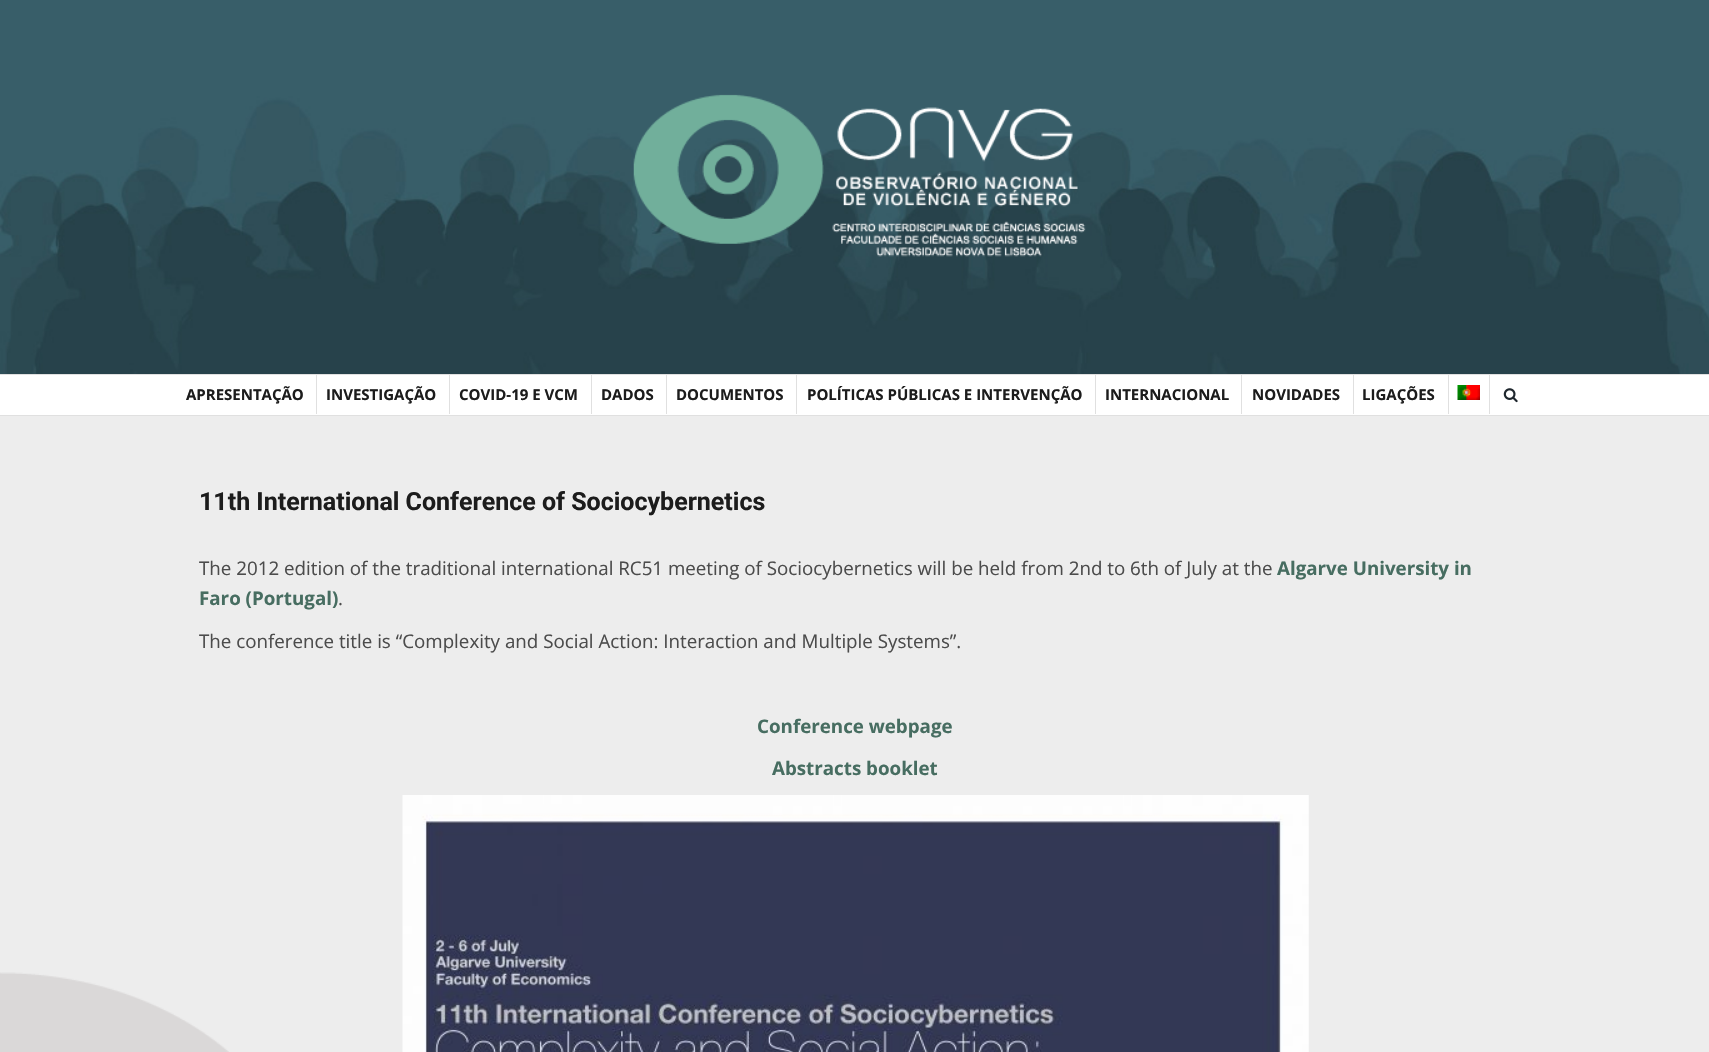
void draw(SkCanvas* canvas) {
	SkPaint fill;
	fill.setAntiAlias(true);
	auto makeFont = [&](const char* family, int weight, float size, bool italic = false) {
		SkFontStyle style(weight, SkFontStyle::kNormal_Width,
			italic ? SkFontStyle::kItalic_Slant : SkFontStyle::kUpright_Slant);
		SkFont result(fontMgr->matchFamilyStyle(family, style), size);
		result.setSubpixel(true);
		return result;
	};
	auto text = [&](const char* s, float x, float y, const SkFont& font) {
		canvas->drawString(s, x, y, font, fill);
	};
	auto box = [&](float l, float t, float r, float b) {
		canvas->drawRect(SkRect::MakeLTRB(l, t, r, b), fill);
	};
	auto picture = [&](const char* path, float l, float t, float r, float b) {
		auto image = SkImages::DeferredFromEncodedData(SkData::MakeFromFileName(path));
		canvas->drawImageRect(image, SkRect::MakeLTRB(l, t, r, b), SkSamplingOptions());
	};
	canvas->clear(0xFFEDEDED);
	picture("image0.png", 0, 972, 229, 1052);
	picture("image1.png", 0, 0, 1709, 374);
	fill.setColor(0xFFE0E0E0);
	box(0, 374, 1709, 375);
	picture("image2.png", 633, 94, 1086, 257);
	fill.setColor(0xFFFFFFFF);
	box(0, 375, 1709, 415);
	fill.setColor(0xFFE0E0E0);
	box(0, 415, 1709, 416);
	box(316, 375, 317, 414);
	box(449, 375, 450, 414);
	box(591, 375, 592, 414);
	box(666, 375, 667, 414);
	box(796, 375, 797, 414);
	box(1095, 375, 1096, 414);
	box(1241, 375, 1242, 414);
	box(1353, 375, 1354, 414);
	box(1448, 375, 1449, 414);
	box(1489, 375, 1490, 414);
	picture("image3.png", 1457, 385, 1480, 400);
	picture("image4.png", 1503, 388, 1518, 403);
	picture("image5.png", 402, 795, 1309, 1052);
	auto font1 = makeFont("Open Sans", 700, 15);
	fill.setColor(0xFF1C1C1C);
	text("APRESENTAÇÃO", 186, 400, font1);
	text("INVESTIGAÇÃO", 326, 400, font1);
	text("COVID-19 E VCM", 459, 400, font1);
	text("DADOS", 601, 400, font1);
	text("DOCUMENTOS", 676, 400, font1);
	text("POLÍTICAS PÚBLICAS E INTERVENÇÃO", 807, 400, font1);
	text("INTERNACIONAL", 1105, 400, font1);
	text("NOVIDADES", 1252, 400, font1);
	text("LIGAÇÕES", 1362, 400, font1);
	auto font2 = makeFont("Roboto", 700, 25);
	text("11th International Conference of Sociocybernetics", 199, 510, font2);
	auto font3 = makeFont("Open Sans", 400, 18.75f);
	fill.setColor(0xFF4C4C4C);
	text("The 2012 edition of the traditional international RC51 meeting of Sociocybernetics will be held from 2nd to 6th of July at the", 199, 575, font3);
	auto font4 = makeFont("Open Sans", 700, 18.75f);
	fill.setColor(0xFF476D61);
	text("Algarve University in", 1277, 575, font4);
	text("Faro (Portugal)", 199, 605, font4);
	fill.setColor(0xFF4C4C4C);
	text(".", 338, 605, font3);
	text("The conference title is “Complexity and Social Action: Interaction and Multiple Systems”.", 199, 648, font3);
	fill.setColor(0xFF476D61);
	text("Conference webpage", 757, 733, font4);
	text("Abstracts booklet", 772, 775, font4);
}
